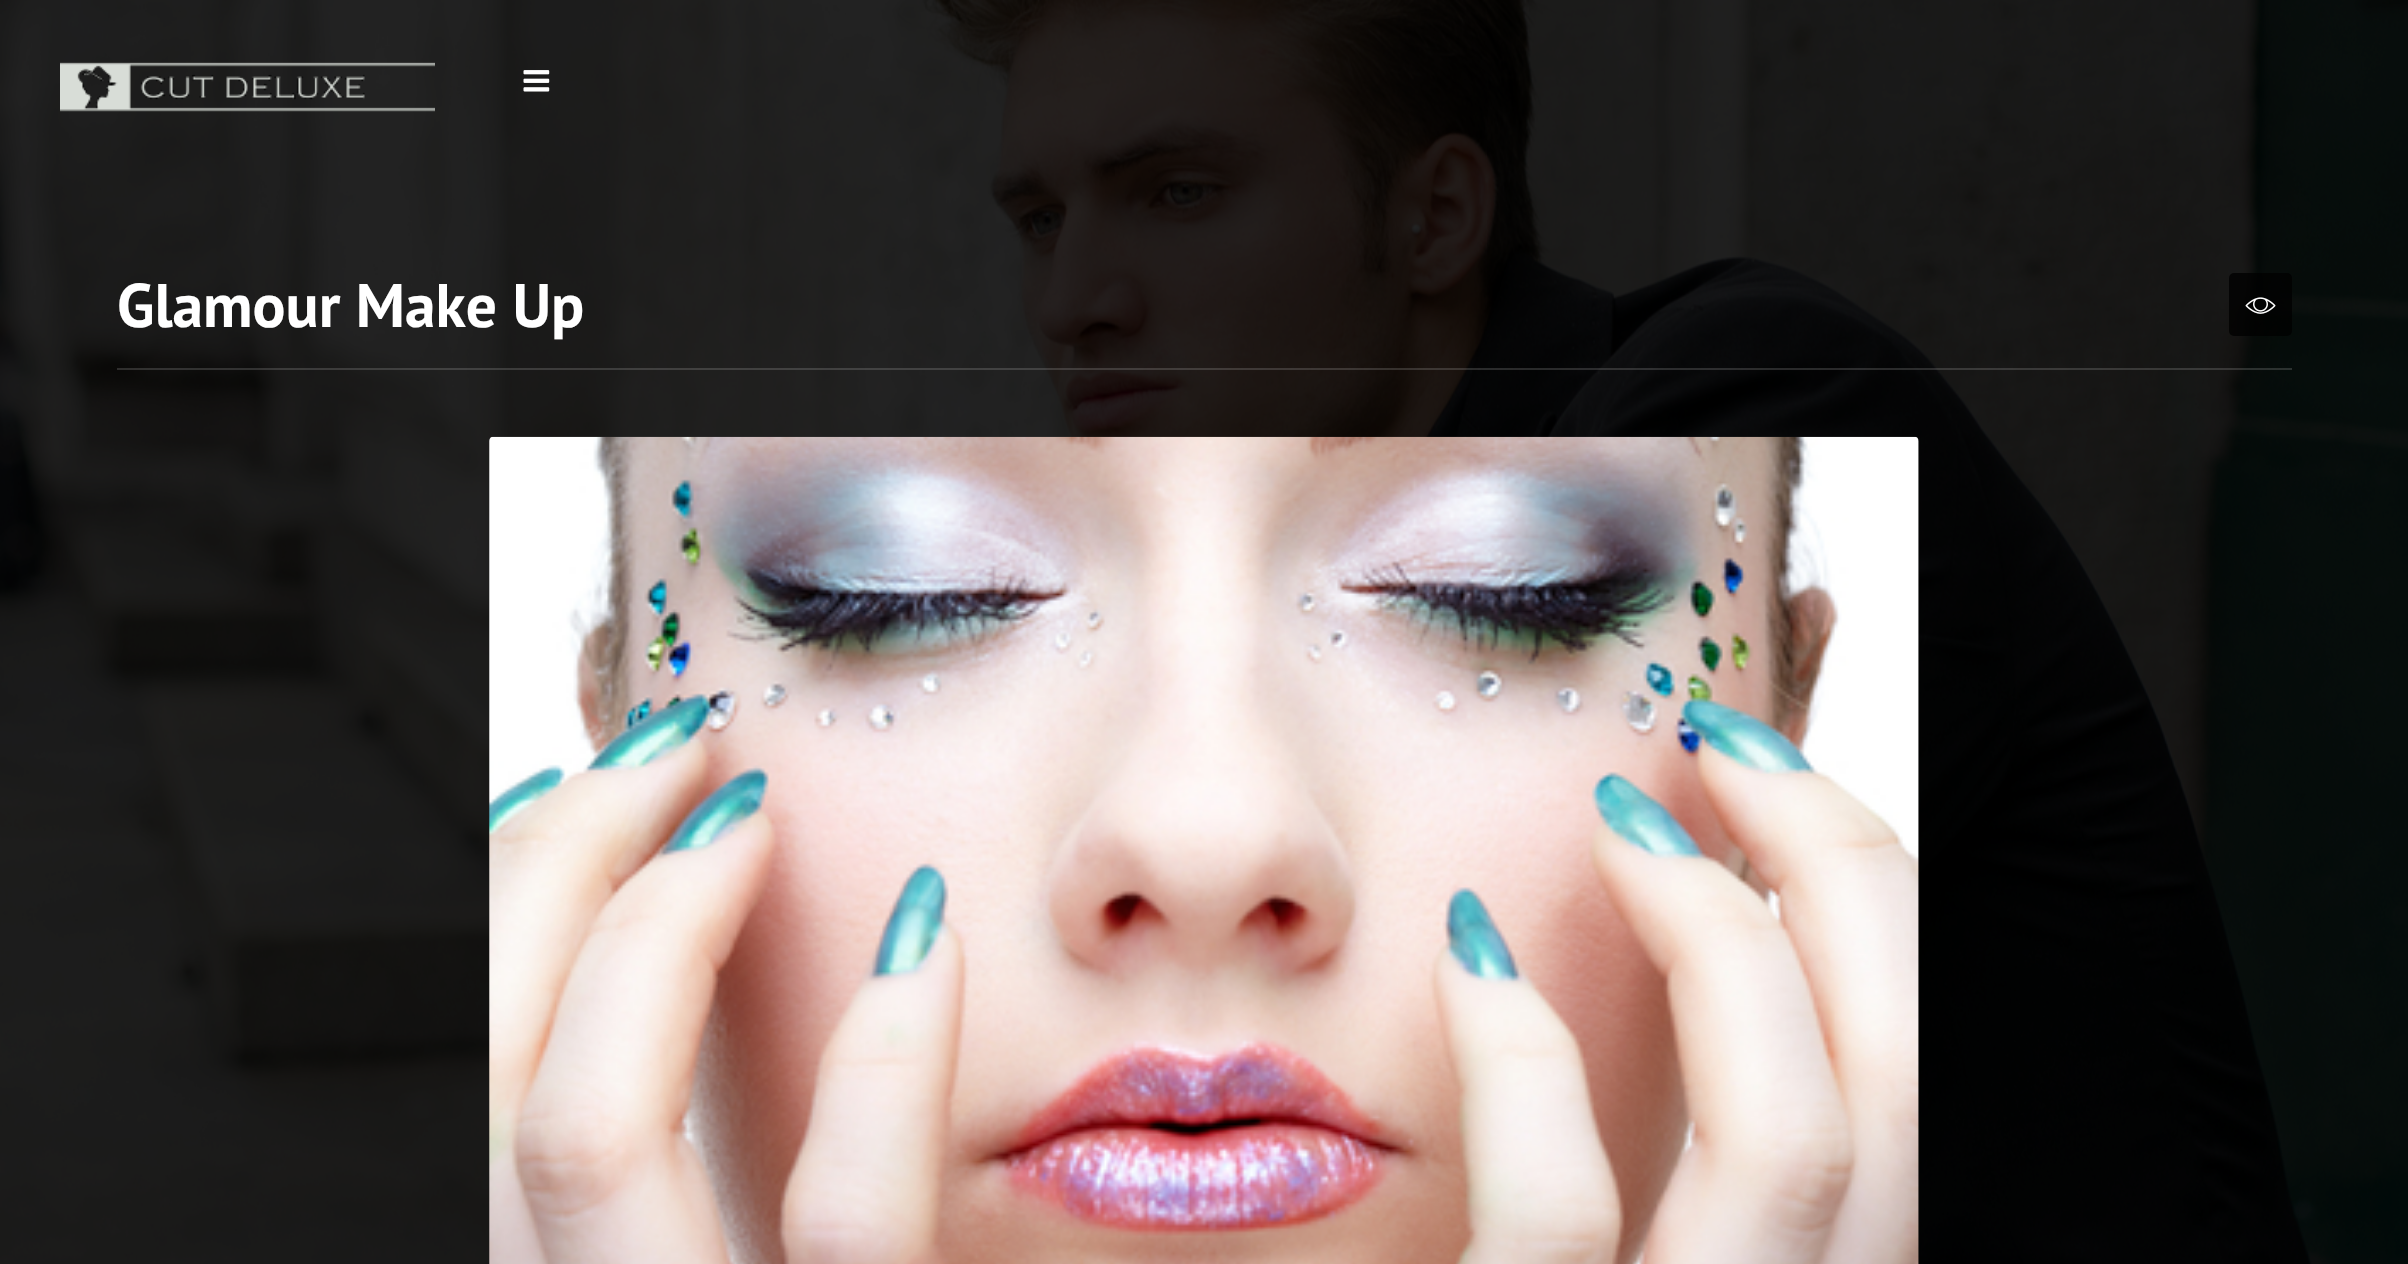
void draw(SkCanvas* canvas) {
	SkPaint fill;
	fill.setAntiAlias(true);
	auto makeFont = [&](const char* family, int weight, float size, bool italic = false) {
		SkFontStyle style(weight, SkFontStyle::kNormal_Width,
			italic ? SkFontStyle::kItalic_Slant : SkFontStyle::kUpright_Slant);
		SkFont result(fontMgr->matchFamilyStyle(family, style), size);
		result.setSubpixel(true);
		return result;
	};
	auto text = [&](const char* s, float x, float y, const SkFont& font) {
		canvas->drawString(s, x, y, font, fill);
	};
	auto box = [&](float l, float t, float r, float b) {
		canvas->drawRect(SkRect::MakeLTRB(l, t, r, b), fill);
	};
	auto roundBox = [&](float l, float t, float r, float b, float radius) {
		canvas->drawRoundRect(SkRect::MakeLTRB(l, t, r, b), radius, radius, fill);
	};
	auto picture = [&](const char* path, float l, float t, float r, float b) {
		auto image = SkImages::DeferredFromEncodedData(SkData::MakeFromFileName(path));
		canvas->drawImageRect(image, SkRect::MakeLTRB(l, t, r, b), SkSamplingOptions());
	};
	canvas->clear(0xFFFFFFFF);
	picture("image0.png", 0, 0, 2408, 1264);
	picture("image1.png", 60, 62, 435, 112);
	picture("image2.png", 523, 70, 550, 92);
	fill.setColor(0x26FFFFFF);
	box(117, 368, 2292, 370);
	fill.setColor(0xCC000000);
	roundBox(2229, 273, 2292, 336, 5);
	picture("image3.png", 2245, 297, 2276, 314);
	picture("image4.png", 489, 436, 1919, 1264);
	auto font1 = makeFont("PT Sans", 700, 61.5f);
	fill.setColor(0xFFFFFFFF);
	text("Glamour Make Up", 117, 327, font1);
}
